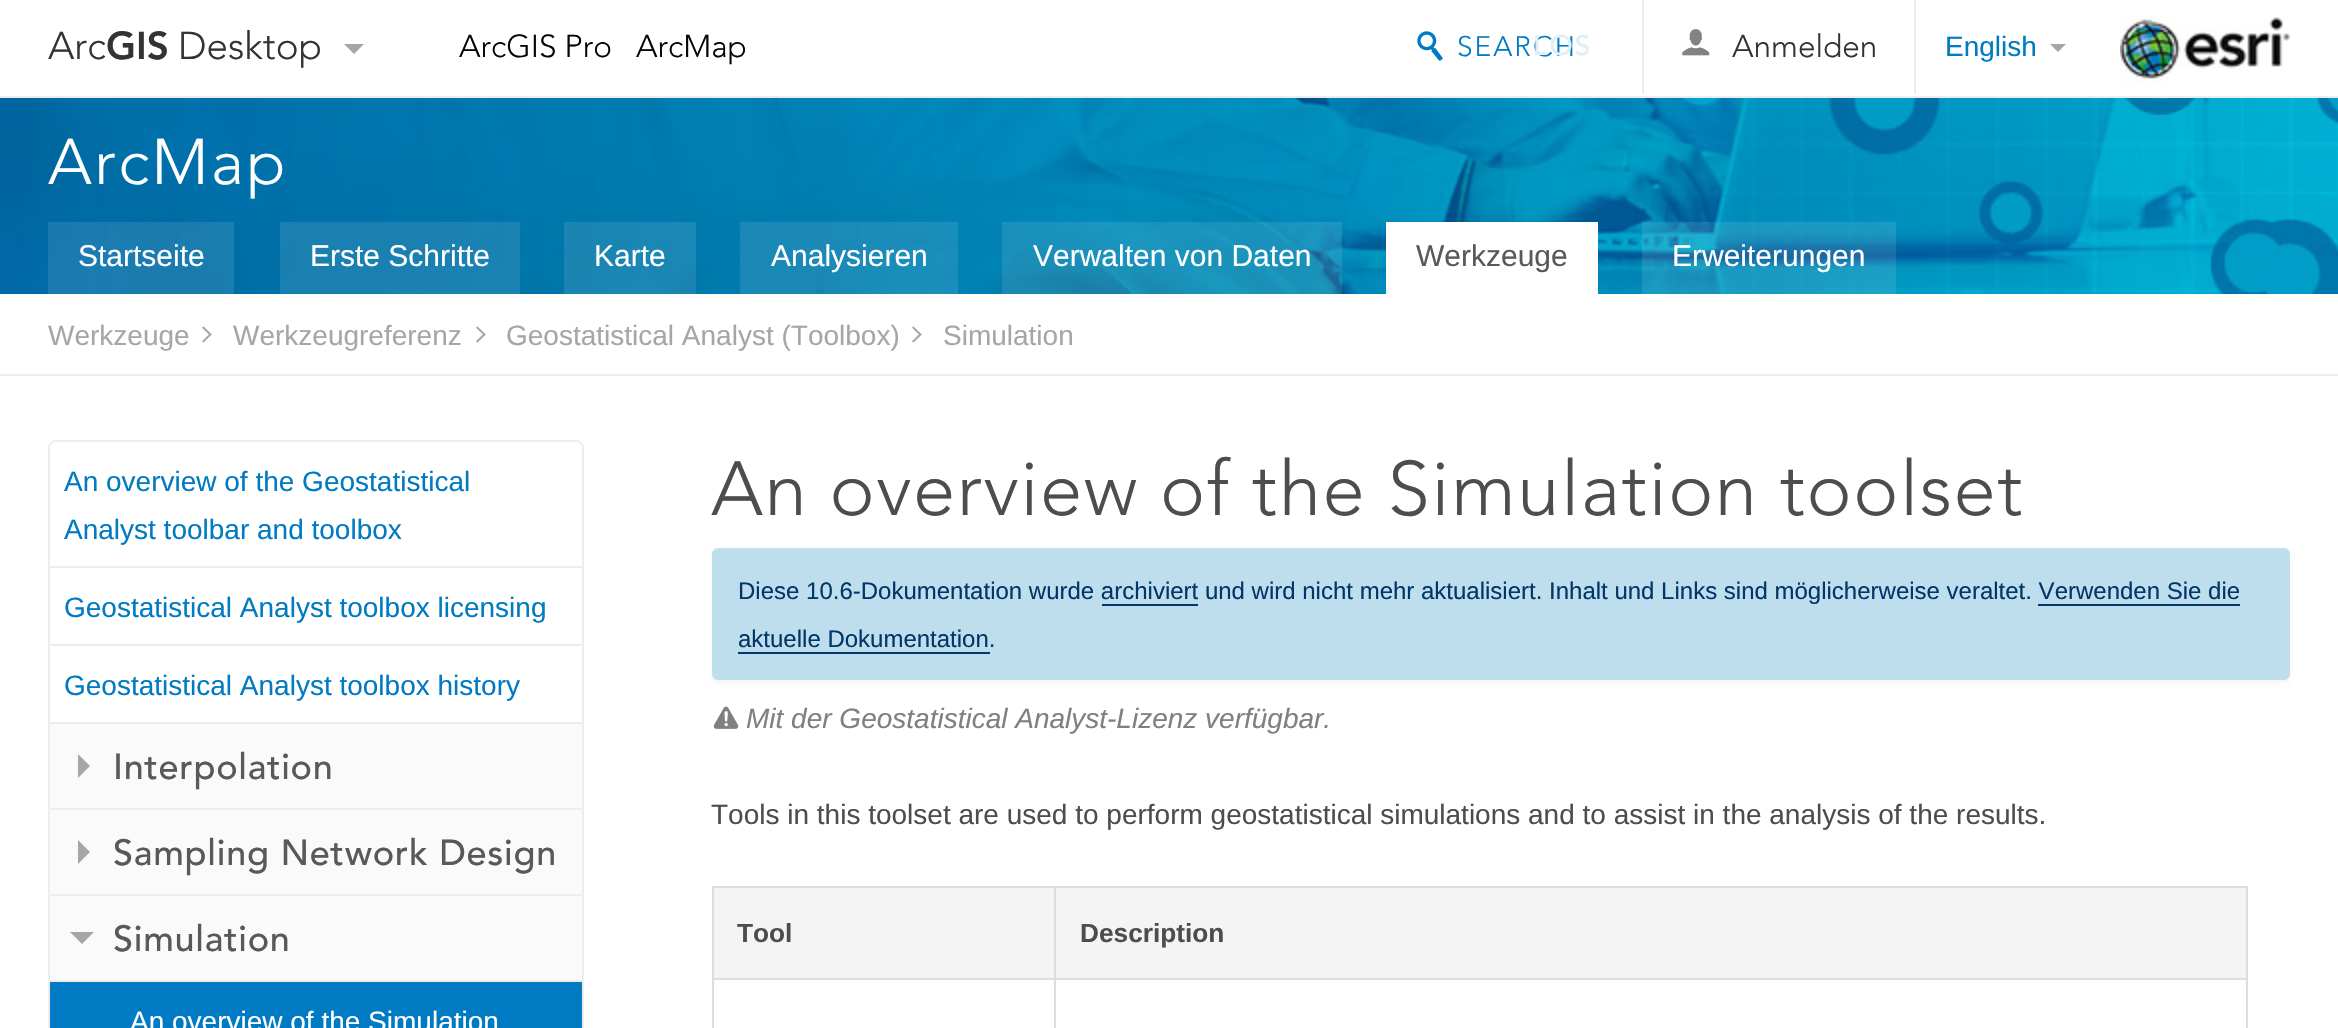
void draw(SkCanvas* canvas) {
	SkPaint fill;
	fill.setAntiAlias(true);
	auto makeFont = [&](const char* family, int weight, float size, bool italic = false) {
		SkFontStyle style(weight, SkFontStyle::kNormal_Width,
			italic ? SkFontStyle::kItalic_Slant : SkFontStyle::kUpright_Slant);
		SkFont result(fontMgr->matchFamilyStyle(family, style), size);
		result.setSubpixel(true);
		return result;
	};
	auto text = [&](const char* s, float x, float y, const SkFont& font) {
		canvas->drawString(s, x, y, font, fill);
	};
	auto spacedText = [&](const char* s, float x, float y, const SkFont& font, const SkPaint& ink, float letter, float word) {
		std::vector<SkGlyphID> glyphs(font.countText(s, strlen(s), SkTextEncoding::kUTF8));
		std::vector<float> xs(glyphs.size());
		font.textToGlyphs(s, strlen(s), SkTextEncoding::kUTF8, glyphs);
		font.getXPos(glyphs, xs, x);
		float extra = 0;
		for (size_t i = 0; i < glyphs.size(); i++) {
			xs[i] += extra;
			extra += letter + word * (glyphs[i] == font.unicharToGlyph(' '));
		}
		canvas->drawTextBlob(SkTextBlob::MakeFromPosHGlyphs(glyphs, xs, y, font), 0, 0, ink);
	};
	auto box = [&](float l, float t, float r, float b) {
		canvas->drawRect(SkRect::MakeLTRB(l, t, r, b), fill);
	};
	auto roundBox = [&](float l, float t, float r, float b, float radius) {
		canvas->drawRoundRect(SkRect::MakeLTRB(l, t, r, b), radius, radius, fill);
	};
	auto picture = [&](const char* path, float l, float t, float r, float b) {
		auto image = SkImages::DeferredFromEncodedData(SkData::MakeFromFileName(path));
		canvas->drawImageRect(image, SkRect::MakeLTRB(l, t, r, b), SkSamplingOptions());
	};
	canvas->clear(0xFFFFFFFF);
	fill.setColor(0xFFEDEDED);
	box(0, 96, 2338, 98);
	fill.setColor(0xFFA6A6A6);
	canvas->drawPath(SkPathBuilder().moveTo(344, 44).lineTo(364, 44).lineTo(354, 54).close().detach(), fill);
	picture("image0.png", 1417, 31, 1443, 61);
	fill.setColor(0xFFEDEDED);
	box(1914, 0, 1916, 94);
	box(1642, 0, 1644, 94);
	picture("image1.png", 1682, 29, 1710, 56);
	fill.setColor(0xFFA6A6A6);
	canvas->drawPath(SkPathBuilder().moveTo(2050, 44).lineTo(2066, 44).lineTo(2058, 52).close().detach(), fill);
	picture("image2.png", 2120, 16, 2290, 82);
	picture("image3.png", 0, 98, 2338, 294);
	fill.setColor(0x1AFFFFFF);
	box(48, 222, 234, 294);
	box(280, 222, 520, 294);
	box(564, 222, 696, 294);
	box(740, 222, 958, 294);
	box(1002, 222, 1342, 294);
	fill.setColor(0xFFFFFFFF);
	box(1386, 222, 1598, 294);
	fill.setColor(0x1AFFFFFF);
	box(1642, 222, 1896, 294);
	fill.setColor(0xFFEDEDED);
	box(0, 374, 2338, 376);
	picture("image4.png", 202, 326, 212, 343);
	picture("image4.png", 476, 326, 486, 343);
	picture("image4.png", 912, 326, 922, 343);
	fill.setStyle(SkPaint::kStroke_Style);
	fill.setStrokeWidth(2);
	canvas->drawRoundRect(SkRect::MakeLTRB(49, 441, 583, 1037), 7, 7, fill);
	fill.setStyle(SkPaint::kFill_Style);
	box(50, 566, 582, 568);
	box(50, 644, 582, 646);
	box(50, 722, 582, 724);
	fill.setColor(0xFFFAFAFA);
	box(50, 724, 582, 808);
	fill.setColor(0xFFEDEDED);
	box(50, 808, 582, 810);
	fill.setColor(0xFFA6A6A6);
	canvas->drawPath(SkPathBuilder().moveTo(78, 778).lineTo(78, 754).lineTo(90, 766).close().detach(), fill);
	fill.setColor(0xFFFAFAFA);
	box(50, 810, 582, 894);
	fill.setColor(0xFFEDEDED);
	box(50, 894, 582, 896);
	fill.setColor(0xFFA6A6A6);
	canvas->drawPath(SkPathBuilder().moveTo(78, 864).lineTo(78, 840).lineTo(90, 852).close().detach(), fill);
	fill.setColor(0xFFFAFAFA);
	box(50, 896, 582, 980);
	fill.setColor(0xFFEDEDED);
	box(50, 980, 582, 982);
	fill.setColor(0xFFA6A6A6);
	canvas->drawPath(SkPathBuilder().moveTo(70, 932).lineTo(94, 932).lineTo(82, 944).close().detach(), fill);
	fill.setColor(0xFF007AC2);
	box(50, 982, 582, 1028);
	fill.setColor(0x0D000000);
	fill.setMaskFilter(SkMaskFilter::MakeBlur(kNormal_SkBlurStyle, 2));
	canvas->drawRoundRect(SkRect::MakeLTRB(712, 550, 2290, 682), 6, 6, fill);
	fill.setMaskFilter(nullptr);
	fill.setColor(0xFFBEDDED);
	roundBox(712, 548, 2290, 680, 6);
	fill.setColor(0x1AFFFFFF);
	canvas->drawPath(SkPathBuilder().moveTo(718, 550).lineTo(2284, 550).cubicTo(2287, 550, 2290, 553, 2290, 556).cubicTo(2290, 552, 2289, 548, 2284, 548).lineTo(718, 548).cubicTo(713, 548, 712, 552, 712, 556).cubicTo(712, 553, 715, 550, 718, 550).close().detach(), fill);
	fill.setColor(0xFF003768);
	box(1102, 604, 1198, 606);
	box(2038, 604, 2240, 606);
	box(738, 652, 990, 654);
	picture("image5.png", 713, 706, 739, 729);
	fill.setColor(0xFFDDDDDD);
	box(712, 886, 2248, 888);
	box(2246, 886, 2248, 1028);
	box(712, 886, 714, 1028);
	fill.setColor(0xFFF4F4F4);
	box(714, 888, 2246, 978);
	fill.setColor(0xFFDDDDDD);
	box(712, 978, 2248, 980);
	box(1054, 886, 1056, 1028);
	auto font1 = makeFont("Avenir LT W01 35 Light", 300, 38.5f);
	fill.setColor(0xFF333333);
	text("Arc", 48, 59, font1);
	auto font2 = makeFont("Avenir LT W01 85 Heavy", 900, 38.5f);
	text("GIS", 106, 59, font2);
	text("Desktop", 178, 59, font1);
	auto font3 = makeFont("Avenir LT W01 35 Light", 300, 31.5f);
	fill.setColor(0xFF050505);
	text("ArcGIS Pro", 459, 57, font3);
	text("ArcMap", 636, 57, font3);
	auto font4 = makeFont("Avenir LT W01 35 Light", 300, 28);
	fill.setColor(0xFF007AC2);
	spacedText("SEARCH", 1457, 56, font4, fill, 2, 0);
	auto font5 = makeFont("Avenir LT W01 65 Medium", 500, 28);
	fill.setColor(0xFFDFEEF7);
	spacedText("LOS", 1533, 55, font5, fill, 2, 0);
	fill.setColor(0xFF333333);
	text("Anmelden", 1732, 57, font3);
	auto font6 = makeFont("Liberation Sans", 400, 28);
	fill.setColor(0xFF007AC2);
	text("English", 1945, 56, font6);
	auto font7 = makeFont("Avenir LT W01 35 Light", 300, 64);
	fill.setColor(0xFFFFFFFF);
	spacedText("ArcMap", 48, 184, font7, fill, 2.5f, 0);
	auto font8 = makeFont("Liberation Sans", 400, 30);
	text("Startseite", 78, 266, font8);
	text("Erste Schritte", 310, 266, font8);
	text("Karte", 594, 266, font8);
	text("Analysieren", 771, 266, font8);
	text("Verwalten von Daten", 1033, 266, font8);
	fill.setColor(0xFF595959);
	text("Werkzeuge", 1416, 266, font8);
	fill.setColor(0xFFFFFFFF);
	text("Erweiterungen", 1672, 266, font8);
	fill.setColor(0xFFA6A6A6);
	text("Werkzeuge", 48, 345, font6);
	text("Werkzeugreferenz", 233, 345, font6);
	text("Geostatistical Analyst (Toolbox)", 506, 345, font6);
	text("Simulation", 943, 345, font6);
	fill.setColor(0xFF007AC2);
	text("An overview of the Geostatistical", 64, 491, font6);
	text("Analyst toolbar and toolbox", 64, 539, font6);
	text("Geostatistical Analyst toolbox licensing", 64, 617, font6);
	text("Geostatistical Analyst toolbox history", 64, 695, font6);
	auto font9 = makeFont("Avenir LT W01 65 Medium", 500, 36);
	fill.setColor(0xFF595959);
	spacedText("Interpolation", 113, 779, font9, fill, 0.75f, 0);
	spacedText("Sampling Network Design", 113, 865, font9, fill, 0.75f, 0);
	spacedText("Simulation", 113, 951, font9, fill, 0.75f, 0);
	fill.setColor(0xFFFFFFFF);
	text("An overview of the Simulation", 130, 1031, font6);
	auto font10 = makeFont("Avenir LT W01 35 Light", 300, 76);
	fill.setColor(0xFF4D4D4D);
	spacedText("An overview of the Simulation toolset", 711, 515, font10, fill, 1.5f, 0);
	auto font11 = makeFont("Liberation Sans", 400, 24);
	fill.setColor(0xFF003768);
	text("Diese 10.6-Dokumentation wurde archiviert und wird nicht mehr aktualisiert. Inhalt und Links sind möglicherweise veraltet. Verwenden Sie die", 738, 599, font11);
	text("aktuelle Dokumentation.", 738, 647, font11);
	auto font12 = makeFont("Liberation Sans", 400, 28, true);
	fill.setColor(0xFF808080);
	text("Mit der Geostatistical Analyst-Lizenz verfügbar.", 746, 728, font12);
	fill.setColor(0xFF4D4D4D);
	text("Tools in this toolset are used to perform geostatistical simulations and to assist in the analysis of the results.", 711, 824, font6);
	auto font13 = makeFont("Liberation Sans", 700, 26.25f);
	text("Tool", 737, 942, font13);
	text("Description", 1080, 942, font13);
}
